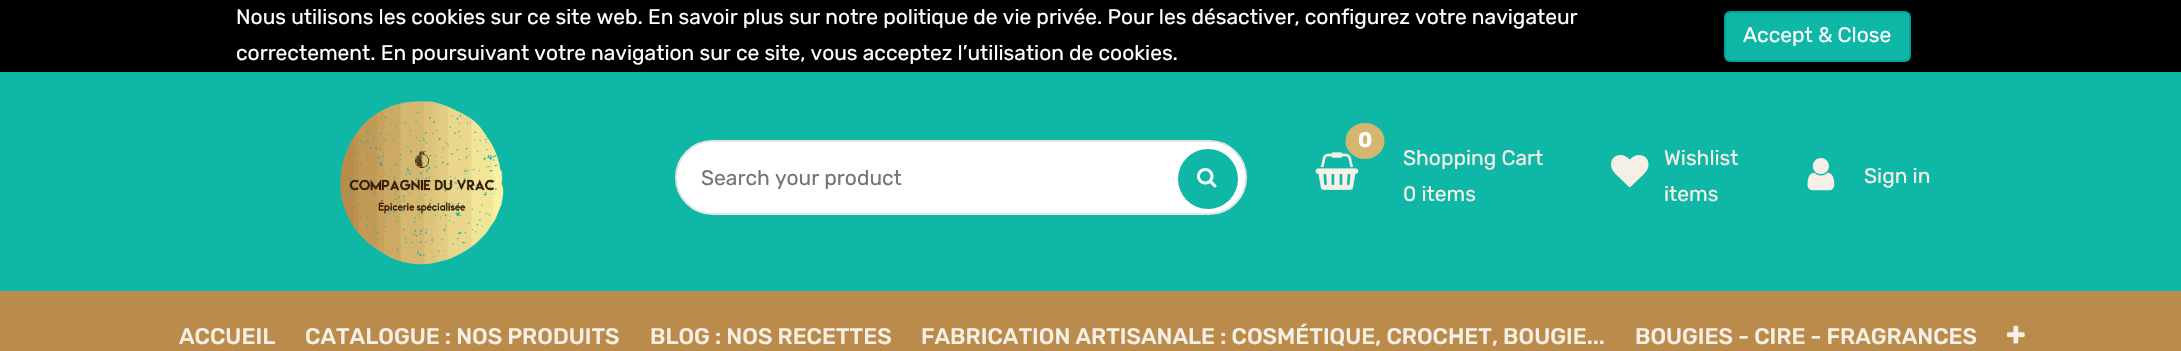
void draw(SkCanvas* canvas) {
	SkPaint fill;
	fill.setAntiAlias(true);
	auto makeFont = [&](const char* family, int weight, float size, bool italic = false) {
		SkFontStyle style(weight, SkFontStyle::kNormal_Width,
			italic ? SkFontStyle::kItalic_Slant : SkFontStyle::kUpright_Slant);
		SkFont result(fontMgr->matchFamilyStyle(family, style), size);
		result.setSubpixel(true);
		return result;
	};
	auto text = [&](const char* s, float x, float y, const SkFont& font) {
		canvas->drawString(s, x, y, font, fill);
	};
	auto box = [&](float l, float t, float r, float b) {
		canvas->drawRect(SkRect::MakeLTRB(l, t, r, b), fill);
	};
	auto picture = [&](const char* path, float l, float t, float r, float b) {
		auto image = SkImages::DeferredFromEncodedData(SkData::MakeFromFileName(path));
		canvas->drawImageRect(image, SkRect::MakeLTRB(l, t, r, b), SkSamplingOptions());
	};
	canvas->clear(0xFF000000);
	fill.setColor(0xFF0FB7A6);
	canvas->drawRoundRect(SkRect::MakeLTRB(1725, 12, 1910, 61), 5, 5, fill);
	fill.setStyle(SkPaint::kStroke_Style);
	fill.setStrokeWidth(2);
	fill.setColor(0xFF00A09D);
	canvas->drawRoundRect(SkRect::MakeLTRB(1725, 12, 1910, 61), 5, 5, fill);
	fill.setStyle(SkPaint::kFill_Style);
	fill.setColor(0xFF0FB7A6);
	box(0, 72, 2181, 291);
	picture("image0.png", 340, 101, 504, 265);
	fill.setColor(0xFFFFFFFF);
	canvas->drawRoundRect(SkRect::MakeLTRB(676, 141, 1246, 214), 36.5f, 36.5f, fill);
	fill.setStyle(SkPaint::kStroke_Style);
	fill.setColor(0xFFE4E4E4);
	canvas->drawRoundRect(SkRect::MakeLTRB(676, 141, 1246, 214), 36.5f, 36.5f, fill);
	fill.setStyle(SkPaint::kFill_Style);
	fill.setColor(0xFF0FB7A6);
	canvas->drawCircle(1208, 179, 30, fill);
	picture("image1.png", 1197, 168, 1217, 188);
	picture("image2.png", 1315, 152, 1359, 190);
	fill.setColor(0xFFD5B670);
	canvas->drawOval(SkRect::MakeLTRB(1345.5f, 123, 1384.5f, 159), fill);
	picture("image3.png", 1611, 155, 1649, 188);
	picture("image4.png", 1807, 158, 1835, 191);
	fill.setColor(0xFFBA8B4A);
	box(0, 291, 2181, 351);
	picture("image5.png", 2007, 325, 2025, 344);
	auto font1 = makeFont("Rubik", 400, 21);
	fill.setColor(0xFFFFFFFF);
	text("Nous utilisons les cookies sur ce site web. En savoir plus sur notre politique de vie privée. Pour les désactiver, configurez votre navigateur", 236, 24, font1);
	text("correctement. En poursuivant votre navigation sur ce site, vous acceptez l’utilisation de cookies.", 236, 60, font1);
	text("Accept & Close", 1743, 42, font1);
	fill.setColor(0xFF757575);
	text("Search your product", 701, 185, font1);
	auto font2 = makeFont("Rubik", 700, 21);
	fill.setColor(0xFFFFFFFF);
	text("0", 1358, 147, font2);
	fill.setColor(0xFFF5EFE6);
	text("Shopping Cart", 1403, 165, font1);
	text("0 items", 1403, 201, font1);
	text("Wishlist", 1664, 165, font1);
	text("items", 1664, 201, font1);
	text("Sign in", 1864, 183, font1);
	auto font3 = makeFont("Rubik", 500, 22.5f);
	text("ACCUEIL", 179, 344, font3);
	text("CATALOGUE : NOS PRODUITS", 305, 344, font3);
	text("BLOG : NOS RECETTES", 650, 344, font3);
	text("FABRICATION ARTISANALE : COSMÉTIQUE, CROCHET, BOUGIE...", 921, 344, font3);
	text("BOUGIES - CIRE - FRAGRANCES", 1635, 344, font3);
}
